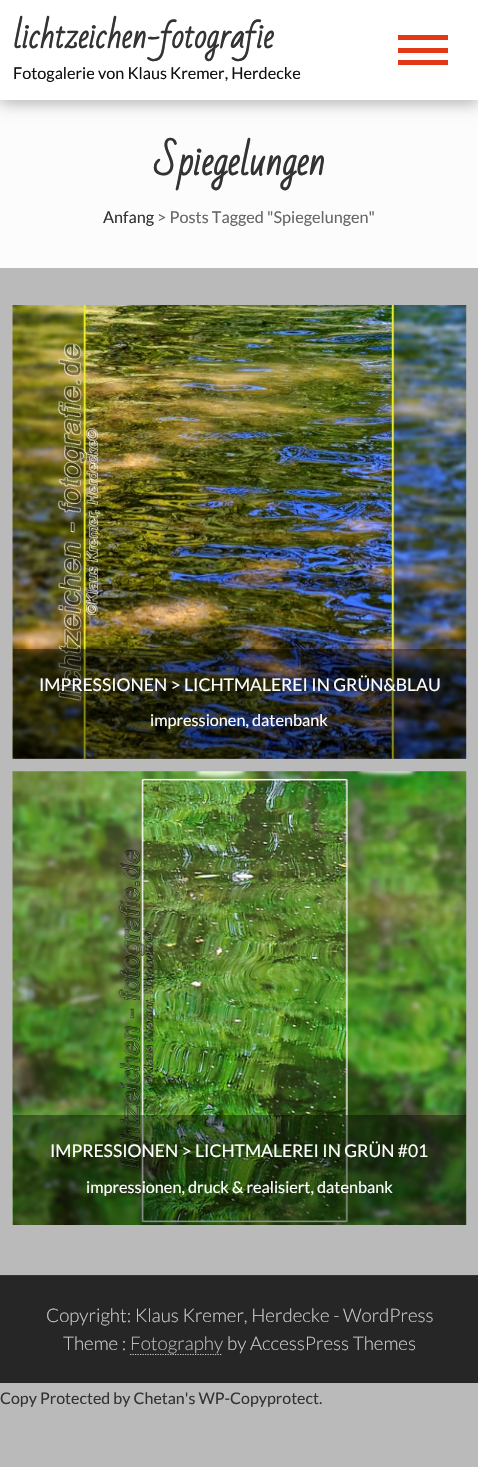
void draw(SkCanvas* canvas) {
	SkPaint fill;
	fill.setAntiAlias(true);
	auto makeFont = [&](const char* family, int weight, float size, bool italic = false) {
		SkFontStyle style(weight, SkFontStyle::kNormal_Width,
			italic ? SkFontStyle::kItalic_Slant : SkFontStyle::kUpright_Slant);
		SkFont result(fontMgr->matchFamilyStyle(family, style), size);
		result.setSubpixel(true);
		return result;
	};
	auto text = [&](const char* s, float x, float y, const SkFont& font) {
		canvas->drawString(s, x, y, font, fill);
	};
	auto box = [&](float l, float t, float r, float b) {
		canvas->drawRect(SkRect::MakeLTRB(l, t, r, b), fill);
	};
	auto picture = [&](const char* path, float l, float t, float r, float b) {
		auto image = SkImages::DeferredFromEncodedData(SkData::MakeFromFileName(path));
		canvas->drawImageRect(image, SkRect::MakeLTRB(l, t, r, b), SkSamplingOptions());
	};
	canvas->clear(0xFFBABABA);
	fill.setColor(0xFFFCFCFC);
	box(0, 100, 478, 268);
	fill.setColor(0x4D000000);
	fill.setMaskFilter(SkMaskFilter::MakeBlur(kNormal_SkBlurStyle, 7.5f));
	canvas->drawRect(SkRect::MakeLTRB(0, 3, 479, 103), fill);
	fill.setMaskFilter(nullptr);
	fill.setColor(0xFFFFFFFF);
	box(0, 0, 478, 100);
	fill.setColor(0xFFE23815);
	box(398, 35, 448, 40);
	box(398, 60, 448, 65);
	box(398, 48, 448, 53);
	picture("image0.png", 12, 305, 467, 759);
	fill.setColor(0x66000000);
	box(13, 649, 466, 759);
	picture("image1.png", 12, 771, 467, 1225);
	box(13, 1115, 466, 1225);
	fill.setColor(0xFF262626);
	box(0, 1276, 478, 1383);
	fill.setColor(0xFF333333);
	box(0, 1275, 478, 1276);
	fill.setStyle(SkPaint::kStroke_Style);
	fill.setStrokeWidth(1.2f);
	fill.setColor(0xFFCCCCCC);
	fill.setPathEffect(SkDashPathEffect::Make({{1.25f, 1.25f}}, 0));
	canvas->drawPath(SkPathBuilder().moveTo(130, 1354.5f).lineTo(222.5f, 1354.5f).detach(), fill);
	fill.setPathEffect(nullptr);
	auto font1 = makeFont("Bad Script", 700, 32.5f);
	fill.setStyle(SkPaint::kFill_Style);
	fill.setColor(0xFF333333);
	text("lichtzeichen-fotografie", 13, 48, font1);
	auto font2 = makeFont("Lato", 400, 16.25f);
	fill.setColor(0xFF111111);
	text("Fotogalerie von Klaus Kremer, Herdecke", 13, 79, font2);
	auto font3 = makeFont("Bad Script", 700, 37.5f);
	fill.setColor(0xFF333333);
	text("Spiegelungen", 154, 175, font3);
	text("Anfang", 103, 223, font2);
	fill.setColor(0xFF666666);
	text("> Posts Tagged \"Spiegelungen\"", 157, 223, font2);
	auto font4 = makeFont("Lato", 400, 17.5f);
	fill.setColor(0xFFFFFFFF);
	text("IMPRESSIONEN > LICHTMALEREI IN GRÜN&BLAU", 39, 691, font4);
	text("impressionen, datenbank", 150, 726, font2);
	text("IMPRESSIONEN > LICHTMALEREI IN GRÜN #01", 50, 1157, font4);
	text("impressionen, druck & realisiert, datenbank", 86, 1193, font2);
	auto font5 = makeFont("Lato", 300, 18.75f);
	fill.setColor(0xFFCCCCCC);
	text("Copyright: Klaus Kremer, Herdecke - WordPress", 46, 1322, font5);
	text("Theme :", 63, 1350, font5);
	fill.setColor(0xFFBBBBBB);
	text("Fotography", 130, 1350, font5);
	fill.setColor(0xFFCCCCCC);
	text("by AccessPress Themes", 227, 1350, font5);
	auto font6 = makeFont("Lato", 400, 16);
	fill.setColor(0xFF333333);
	text("Copy Protected by Chetan's WP-Copyprotect.", 0, 1404, font6);
}
